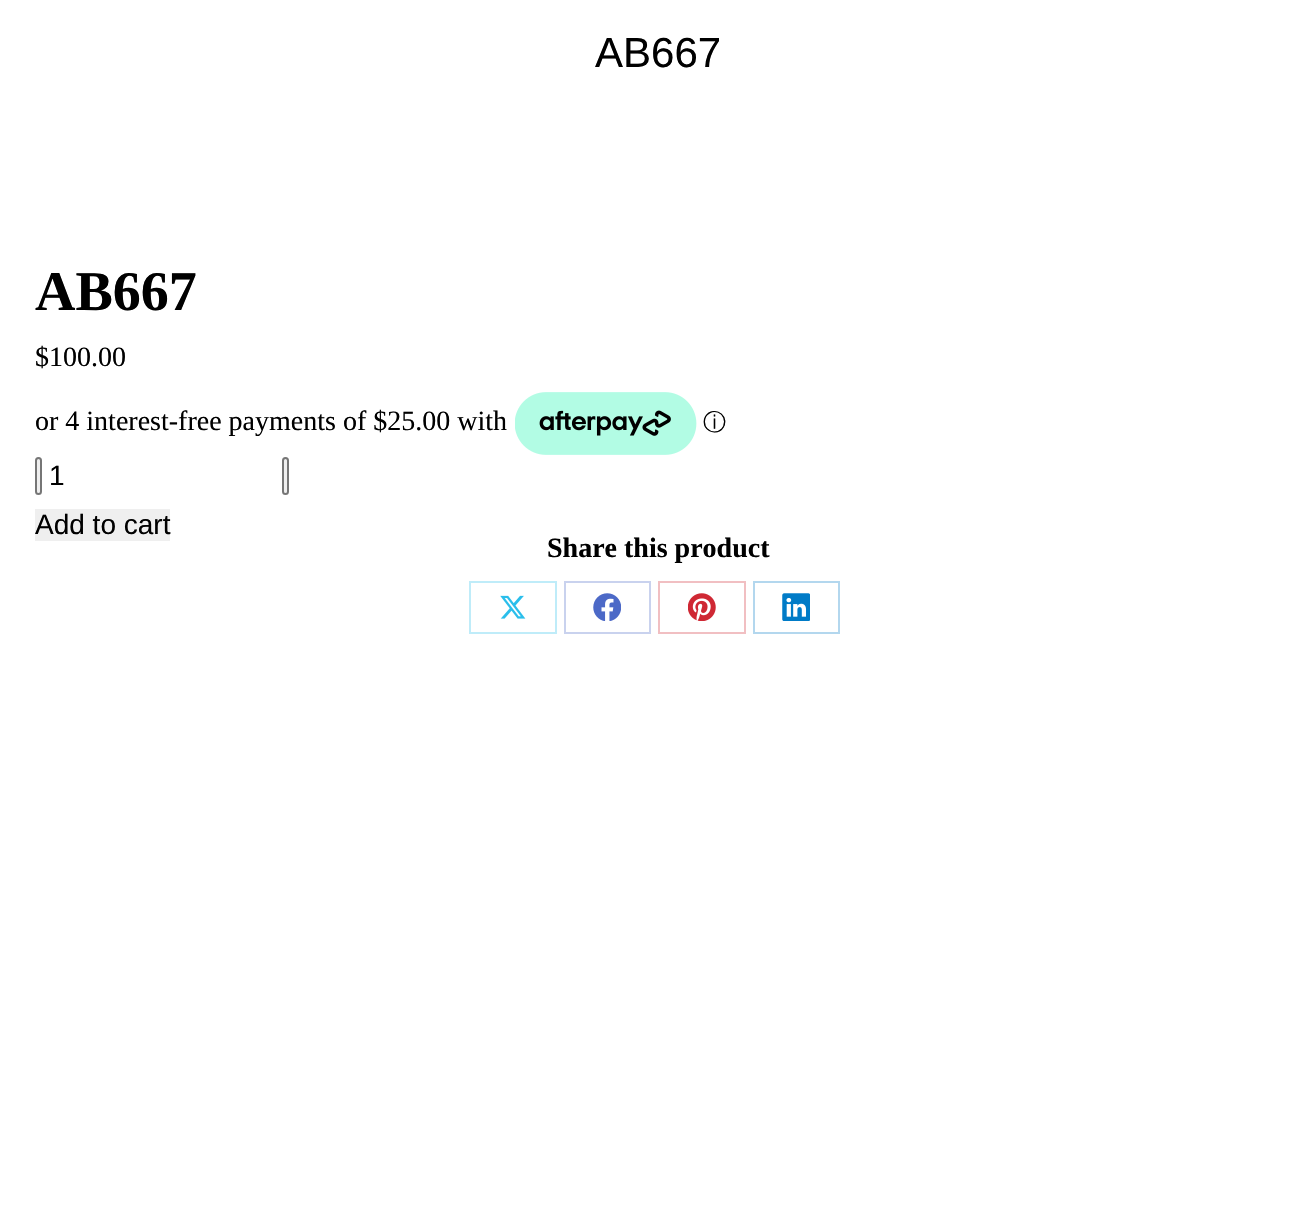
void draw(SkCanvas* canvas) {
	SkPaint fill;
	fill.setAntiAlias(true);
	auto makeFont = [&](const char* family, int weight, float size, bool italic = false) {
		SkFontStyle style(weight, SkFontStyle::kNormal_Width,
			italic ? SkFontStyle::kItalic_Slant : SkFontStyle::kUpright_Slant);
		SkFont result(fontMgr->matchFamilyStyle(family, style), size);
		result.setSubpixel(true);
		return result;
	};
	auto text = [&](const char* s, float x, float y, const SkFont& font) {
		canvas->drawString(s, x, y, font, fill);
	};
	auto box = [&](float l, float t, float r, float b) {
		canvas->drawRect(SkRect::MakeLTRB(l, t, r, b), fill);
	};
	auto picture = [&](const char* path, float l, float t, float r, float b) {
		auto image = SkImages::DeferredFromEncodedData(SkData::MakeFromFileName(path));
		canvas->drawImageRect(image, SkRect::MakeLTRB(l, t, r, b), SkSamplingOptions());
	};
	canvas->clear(0xFFFFFFFF);
	picture("image0.png", 515, 392, 697, 455);
	fill.setColor(0xFFEFEFEF);
	canvas->drawRoundRect(SkRect::MakeLTRB(36, 458, 41, 494), 2.5f, 2.5f, fill);
	fill.setStyle(SkPaint::kStroke_Style);
	fill.setStrokeWidth(2);
	fill.setColor(0xFF767676);
	canvas->drawRoundRect(SkRect::MakeLTRB(36, 458, 41, 494), 2.5f, 2.5f, fill);
	fill.setStyle(SkPaint::kFill_Style);
	fill.setColor(0xFFEFEFEF);
	canvas->drawRoundRect(SkRect::MakeLTRB(283, 458, 288, 494), 2.5f, 2.5f, fill);
	fill.setStyle(SkPaint::kStroke_Style);
	fill.setColor(0xFF767676);
	canvas->drawRoundRect(SkRect::MakeLTRB(283, 458, 288, 494), 2.5f, 2.5f, fill);
	fill.setStyle(SkPaint::kFill_Style);
	fill.setColor(0xFFEFEFEF);
	box(35, 509, 170, 541);
	fill.setStyle(SkPaint::kStroke_Style);
	fill.setColor(0xFFBFECF9);
	canvas->drawRect(SkRect::MakeLTRB(470, 582, 556, 633), fill);
	picture("image1.png", 500, 595, 526, 619);
	fill.setColor(0xFFC9D2EE);
	canvas->drawRect(SkRect::MakeLTRB(565, 582, 650, 633), fill);
	picture("image2.png", 593, 593, 621, 621);
	fill.setColor(0xFFF1BFC2);
	canvas->drawRect(SkRect::MakeLTRB(659, 582, 745, 633), fill);
	picture("image3.png", 688, 593, 716, 621);
	fill.setColor(0xFFB3D7EE);
	canvas->drawRect(SkRect::MakeLTRB(754, 582, 839, 633), fill);
	picture("image4.png", 782, 593, 810, 621);
	auto font1 = makeFont("Liberation Sans", 400, 42);
	fill.setStyle(SkPaint::kFill_Style);
	fill.setColor(0xFF000000);
	text("AB667", 595, 67, font1);
	auto font2 = makeFont("Liberation Serif", 700, 56);
	text("AB667", 35, 310, font2);
	auto font3 = makeFont("Liberation Serif", 400, 28);
	text("$100.00", 35, 366, font3);
	text("or 4 interest-free payments of $25.00 with", 35, 430, font3);
	auto font4 = makeFont("WenQuanYi Zen Hei", 500, 23);
	text("ⓘ", 703, 430, font4);
	auto font5 = makeFont("Liberation Sans", 400, 28);
	text("1", 49, 485, font5);
	text("Add to cart", 35, 534, font5);
	auto font6 = makeFont("Liberation Serif", 700, 28);
	text("Share this product", 547, 557, font6);
}
